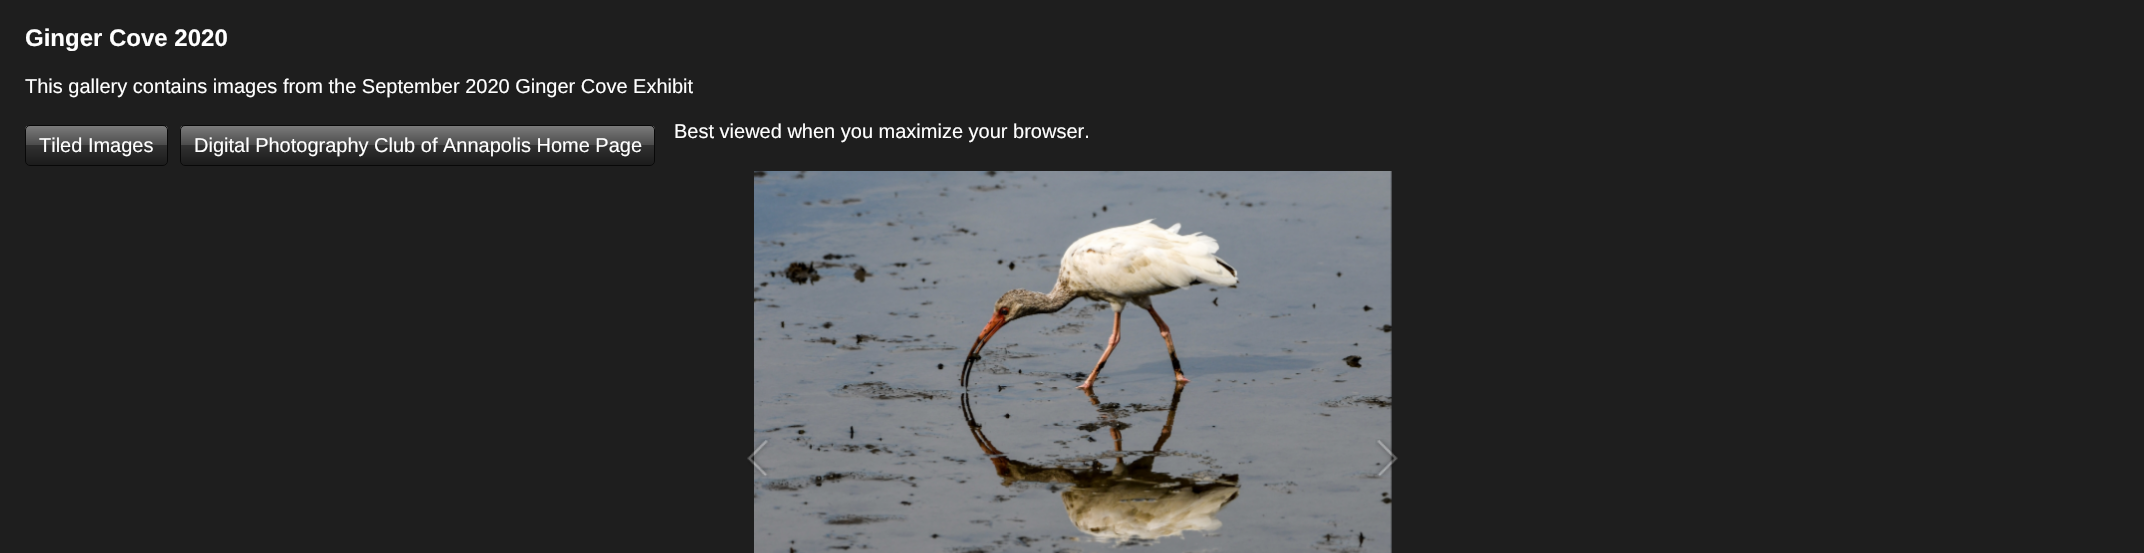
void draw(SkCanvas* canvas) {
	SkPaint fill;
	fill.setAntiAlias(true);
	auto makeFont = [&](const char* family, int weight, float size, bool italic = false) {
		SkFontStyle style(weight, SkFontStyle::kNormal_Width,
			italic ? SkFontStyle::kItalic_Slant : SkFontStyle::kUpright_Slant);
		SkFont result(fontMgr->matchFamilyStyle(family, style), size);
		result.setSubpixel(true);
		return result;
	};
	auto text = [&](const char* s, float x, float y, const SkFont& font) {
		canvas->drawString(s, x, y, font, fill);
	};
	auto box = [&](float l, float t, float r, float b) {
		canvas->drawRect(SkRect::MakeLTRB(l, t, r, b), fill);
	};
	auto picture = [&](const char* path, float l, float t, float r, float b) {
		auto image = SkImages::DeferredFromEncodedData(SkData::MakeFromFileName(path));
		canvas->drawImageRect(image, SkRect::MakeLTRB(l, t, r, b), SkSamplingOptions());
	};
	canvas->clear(0xFF1E1E1E);
	canvas->save();
	canvas->clipPath(SkPathBuilder().moveTo(30, 125).lineTo(163, 125).cubicTo(166, 125, 168, 127, 168, 130).lineTo(168, 161).cubicTo(168, 164, 166, 166, 163, 166).lineTo(30, 166).cubicTo(27, 166, 25, 164, 25, 161).lineTo(25, 130).cubicTo(25, 127, 27, 125, 30, 125).close().detach(), true);
	{
		const SkColor colors[] = {0xFF7B7B7B, 0xFF4A4A4A, 0xFF313131, 0xFF1B1B1B};
		const float stops[] = {0, 0.5f, 0.5f, 1};
		const SkPoint ends[] = {{96, 126}, {96, 165}};
		fill.setShader(SkGradientShader::MakeLinear(ends, colors, stops, 4, SkTileMode::kClamp));
		fill.setAlpha(255);
	}
	box(25, 126, 168, 165);
	canvas->restore();
	fill.setStyle(SkPaint::kStroke_Style);
	fill.setStrokeWidth(1);
	fill.setShader(nullptr);
	fill.setColor(0xFF080808);
	canvas->drawRoundRect(SkRect::MakeLTRB(25.5f, 125.5f, 167.5f, 165.5f), 4.5f, 4.5f, fill);
	canvas->save();
	canvas->clipPath(SkPathBuilder().moveTo(185, 125).lineTo(650, 125).cubicTo(653, 125, 655, 127, 655, 130).lineTo(655, 161).cubicTo(655, 164, 653, 166, 650, 166).lineTo(185, 166).cubicTo(182, 166, 180, 164, 180, 161).lineTo(180, 130).cubicTo(180, 127, 182, 125, 185, 125).close().detach(), true);
	fill.setStyle(SkPaint::kFill_Style);
	{
		const SkColor colors[] = {0xFF7B7B7B, 0xFF4A4A4A, 0xFF313131, 0xFF1B1B1B};
		const float stops[] = {0, 0.5f, 0.5f, 1};
		const SkPoint ends[] = {{418, 126}, {418, 165}};
		fill.setShader(SkGradientShader::MakeLinear(ends, colors, stops, 4, SkTileMode::kClamp));
		fill.setAlpha(255);
	}
	box(180, 126, 655, 165);
	canvas->restore();
	fill.setStyle(SkPaint::kStroke_Style);
	fill.setShader(nullptr);
	fill.setColor(0xFF080808);
	canvas->drawRoundRect(SkRect::MakeLTRB(180.5f, 125.5f, 654.5f, 165.5f), 4.5f, 4.5f, fill);
	picture("image0.png", 754, 171, 1392, 553);
	picture("image1.png", 747, 439, 770, 477);
	picture("image2.png", 1375, 439, 1398, 477);
	auto font1 = makeFont("Liberation Sans", 700, 24);
	fill.setStyle(SkPaint::kFill_Style);
	fill.setColor(0xFFFFFFFF);
	text("Ginger Cove 2020", 25, 46, font1);
	auto font2 = makeFont("Liberation Sans", 400, 20);
	text("This gallery contains images from the September 2020 Ginger Cove Exhibit", 25, 93, font2);
	text("Best viewed when you maximize your browser.", 674, 138, font2);
	text("Tiled Images", 39, 152, font2);
	text("Digital Photography Club of Annapolis Home Page", 194, 152, font2);
}
